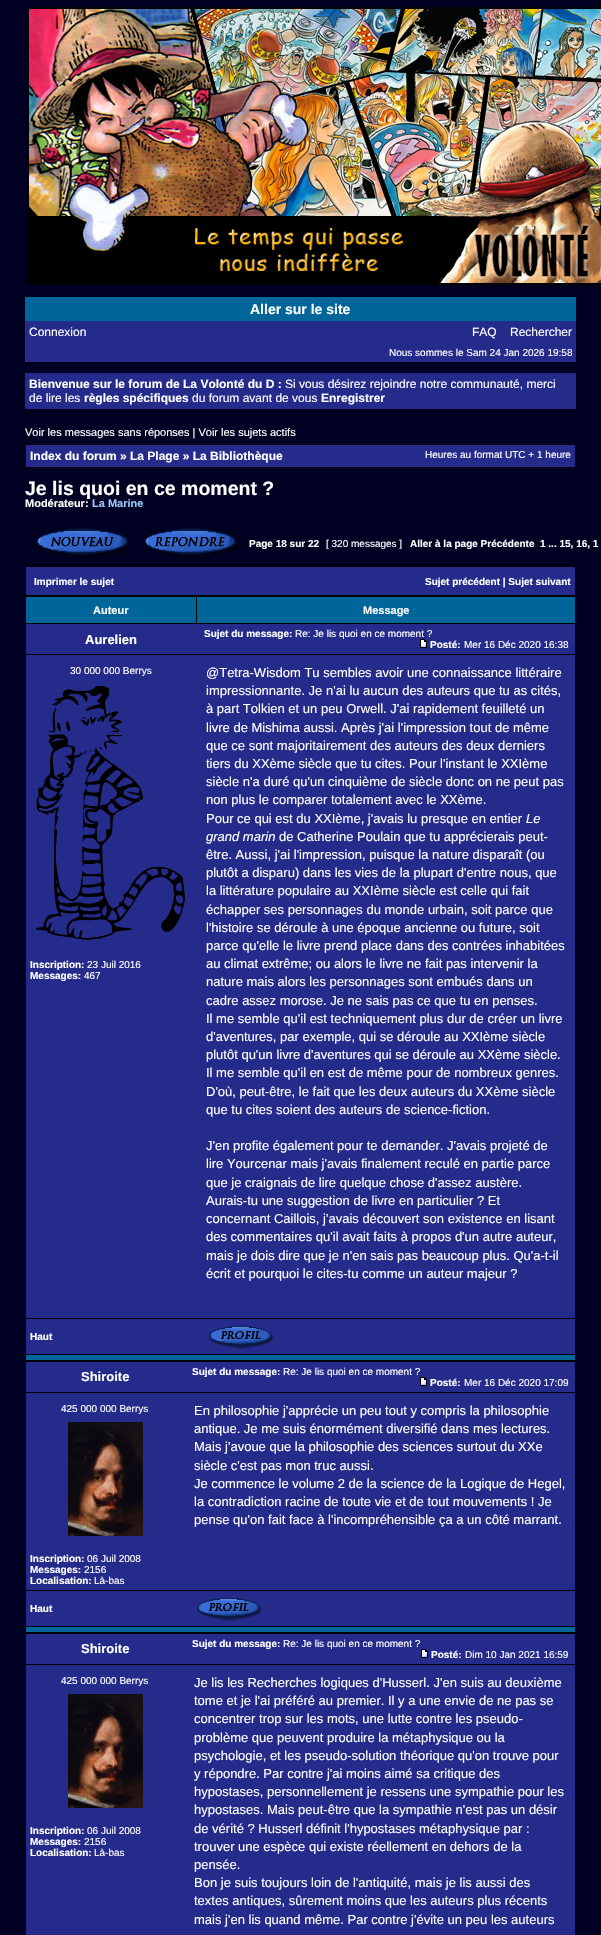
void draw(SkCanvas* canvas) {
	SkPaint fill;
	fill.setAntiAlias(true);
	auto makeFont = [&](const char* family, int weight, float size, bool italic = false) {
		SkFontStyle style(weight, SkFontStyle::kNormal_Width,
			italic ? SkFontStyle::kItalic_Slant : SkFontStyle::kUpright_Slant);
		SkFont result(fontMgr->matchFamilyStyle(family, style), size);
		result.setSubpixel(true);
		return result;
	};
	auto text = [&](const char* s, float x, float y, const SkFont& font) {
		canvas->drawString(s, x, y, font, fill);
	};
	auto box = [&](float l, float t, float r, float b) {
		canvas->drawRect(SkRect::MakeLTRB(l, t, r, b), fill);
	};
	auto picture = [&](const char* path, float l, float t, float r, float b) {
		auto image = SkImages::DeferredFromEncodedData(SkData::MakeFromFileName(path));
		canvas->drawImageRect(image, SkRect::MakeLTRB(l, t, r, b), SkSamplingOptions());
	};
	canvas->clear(0xFF000022);
	picture("image0.png", 27, 7, 601, 285);
	fill.setColor(0xFF006699);
	box(25, 297, 576, 321);
	fill.setColor(0xFF252B8B);
	box(25, 321, 576, 343);
	box(25, 343, 576, 362);
	box(25, 373, 576, 409);
	fill.setColor(0xFF000000);
	box(25, 444, 576, 468);
	fill.setColor(0xFF252B8B);
	box(26, 445, 575, 467);
	picture("image1.png", 35, 528, 131, 559);
	picture("image2.png", 143, 528, 239, 559);
	fill.setColor(0xFF000000);
	box(25, 566, 576, 1935);
	fill.setColor(0xFF252B8B);
	box(26, 567, 575, 595);
	fill.setColor(0xFF006699);
	box(26, 597, 196, 623);
	box(197, 597, 575, 623);
	fill.setColor(0xFF252B8B);
	box(26, 624, 575, 654);
	box(26, 655, 575, 1318);
	picture("image4.png", 36, 685, 186, 940);
	box(26, 1319, 575, 1354);
	picture("image5.png", 209, 1325, 274, 1349);
	fill.setColor(0xFF006699);
	box(26, 1355, 575, 1360);
	fill.setColor(0xFF252B8B);
	box(26, 1362, 575, 1392);
	picture("image3.png", 420, 1377, 427, 1386);
	box(26, 1393, 575, 1590);
	picture("image6.png", 68, 1422, 143, 1536);
	box(26, 1591, 575, 1626);
	picture("image5.png", 197, 1597, 262, 1621);
	fill.setColor(0xFF006699);
	box(26, 1627, 575, 1632);
	fill.setColor(0xFF252B8B);
	box(26, 1634, 575, 1664);
	picture("image3.png", 421, 1649, 428, 1658);
	box(26, 1665, 575, 1935);
	picture("image7.png", 68, 1694, 143, 1808);
	auto font1 = makeFont("Liberation Sans", 700, 14);
	fill.setColor(0xFFFFFFFF);
	text("Aller sur le site", 250, 314, font1);
	auto font2 = makeFont("Liberation Sans", 400, 12);
	text("Connexion", 29, 336, font2);
	text("FAQ", 472, 336, font2);
	text("Rechercher", 510, 336, font2);
	auto font3 = makeFont("Liberation Sans", 400, 10);
	text("Nous sommes le Sam 24 Jan 2026 19:58", 389, 356, font3);
	auto font4 = makeFont("Liberation Sans", 700, 12);
	text("Bienvenue sur le forum de La Volonté du D :", 29, 388, font4);
	text("Si vous désirez rejoindre notre communauté, merci", 285, 388, font2);
	text("de lire les", 29, 402, font2);
	text("règles spécifiques", 84, 402, font4);
	text("du forum avant de vous", 192, 402, font2);
	text("Enregistrer", 321, 402, font4);
	auto font5 = makeFont("Liberation Sans", 400, 11);
	text("Voir les messages sans réponses | Voir les sujets actifs", 25, 436, font5);
	text("Index du forum » La Plage » La Bibliothèque", 30, 460, font4);
	text("Heures au format UTC + 1 heure", 425, 458, font3);
	auto font6 = makeFont("Liberation Sans", 700, 19.5f);
	text("Je lis quoi en ce moment ?", 25, 495, font6);
	auto font7 = makeFont("Liberation Sans", 700, 11);
	text("Modérateur:", 25, 507, font7);
	fill.setColor(0xFF99CCFF);
	text("La Marine", 92, 507, font7);
	auto font8 = makeFont("Liberation Sans", 700, 10);
	fill.setColor(0xFFFFFFFF);
	text("Page 18 sur 22", 249, 547, font8);
	text("[ 320 messages ]", 326, 547, font3);
	text("Aller à la page Précédente", 410, 547, font8);
	text("1 ... 15, 16, 1", 540, 547, font8);
	text("Imprimer le sujet", 34, 585, font8);
	text("Sujet précédent | Sujet suivant", 425, 585, font8);
	text("Auteur", 93, 614, font7);
	text("Message", 363, 614, font7);
	auto font9 = makeFont("Liberation Sans", 700, 13);
	text("Aurelien", 85, 644, font9);
	text("Sujet du message:", 204, 637, font8);
	text("Re: Je lis quoi en ce moment ?", 295, 637, font3);
	picture("image3.png", 420, 639, 427, 648);
	text("Posté:", 430, 648, font8);
	text("Mer 16 Déc 2020 16:38", 464, 648, font3);
	text("30 000 000 Berrys", 70, 674, font3);
	text("Inscription:", 30, 968, font8);
	text("23 Juil 2016", 87, 968, font3);
	text("Messages:", 30, 979, font8);
	text("467", 84, 979, font3);
	auto font10 = makeFont("Liberation Sans", 400, 13);
	text("@Tetra-Wisdom Tu sembles avoir une connaissance littéraire", 206, 677, font10);
	text("impressionnante. Je n'ai lu aucun des auteurs que tu as cités,", 206, 695, font10);
	text("à part Tolkien et un peu Orwell. J'ai rapidement feuilleté un", 206, 713, font10);
	text("livre de Mishima aussi. Après j'ai l'impression tout de même", 206, 732, font10);
	text("que ce sont majoritairement des auteurs des deux derniers", 206, 750, font10);
	text("tiers du XXème siècle que tu cites. Pour l'instant le XXIème", 206, 768, font10);
	text("siècle n'a duré qu'un cinquième de siècle donc on ne peut pas", 206, 786, font10);
	text("non plus le comparer totalement avec le XXème.", 206, 804, font10);
	text("Pour ce qui est du XXIème, j'avais lu presque en entier", 206, 823, font10);
	auto font11 = makeFont("Liberation Sans", 400, 13, true);
	text("Le", 526, 823, font11);
	text("grand marin", 206, 841, font11);
	text("de Catherine Poulain que tu apprécierais peut-", 279, 841, font10);
	text("être. Aussi, j'ai l'impression, puisque la nature disparaît (ou", 206, 859, font10);
	text("plutôt a disparu) dans les vies de la plupart d'entre nous, que", 206, 877, font10);
	text("la littérature populaire au XXIème siècle est celle qui fait", 206, 895, font10);
	text("échapper ses personnages du monde urbain, soit parce que", 206, 914, font10);
	text("l'histoire se déroule à une époque ancienne ou future, soit", 206, 932, font10);
	text("parce qu'elle le livre prend place dans des contrées inhabitées", 206, 950, font10);
	text("au climat extrême; ou alors le livre ne fait pas intervenir la", 206, 968, font10);
	text("nature mais alors les personnages sont embués dans un", 206, 986, font10);
	text("cadre assez morose. Je ne sais pas ce que tu en penses.", 206, 1005, font10);
	text("Il me semble qu'il est techniquement plus dur de créer un livre", 206, 1023, font10);
	text("d'aventures, par exemple, qui se déroule au XXIème siècle", 206, 1041, font10);
	text("plutôt qu'un livre d'aventures qui se déroule au XXème siècle.", 206, 1059, font10);
	text("Il me semble qu'il en est de même pour de nombreux genres.", 206, 1077, font10);
	text("D'où, peut-être, le fait que les deux auteurs du XXème siècle", 206, 1096, font10);
	text("que tu cites soient des auteurs de science-fiction.", 206, 1114, font10);
	text("J'en profite également pour te demander. J'avais projeté de", 206, 1150, font10);
	text("lire Yourcenar mais j'avais finalement reculé en partie parce", 206, 1168, font10);
	text("que je craignais de lire quelque chose d'assez austère.", 206, 1187, font10);
	text("Aurais-tu une suggestion de livre en particulier ? Et", 206, 1205, font10);
	text("concernant Caillois, j'avais découvert son existence en lisant", 206, 1223, font10);
	text("des commentaires qu'il avait faits à propos d'un autre auteur,", 206, 1241, font10);
	text("mais je dois dire que je n'en sais pas beaucoup plus. Qu'a-t-il", 206, 1260, font10);
	text("écrit et pourquoi le cites-tu comme un auteur majeur ?", 206, 1278, font10);
	text("Haut", 30, 1340, font8);
	text("Shiroite", 81, 1381, font9);
	text("Sujet du message:", 192, 1375, font8);
	text("Re: Je lis quoi en ce moment ?", 283, 1375, font3);
	text("Posté:", 430, 1386, font8);
	text("Mer 16 Déc 2020 17:09", 464, 1386, font3);
	text("425 000 000 Berrys", 61, 1412, font3);
	text("Inscription:", 30, 1562, font8);
	text("06 Juil 2008", 87, 1562, font3);
	text("Messages:", 30, 1573, font8);
	text("2156", 84, 1573, font3);
	text("Localisation:", 30, 1584, font8);
	text("Là-bas", 94, 1584, font3);
	text("En philosophie j'apprécie un peu tout y compris la philosophie", 194, 1415, font10);
	text("antique. Je me suis énormément diversifié dans mes lectures.", 194, 1433, font10);
	text("Mais j'avoue que la philosophie des sciences surtout du XXe", 194, 1451, font10);
	text("siècle c'est pas mon truc aussi.", 194, 1470, font10);
	text("Je commence le volume 2 de la science de la Logique de Hegel,", 194, 1488, font10);
	text("la contradiction racine de toute vie et de tout mouvements ! Je", 194, 1506, font10);
	text("pense qu'on fait face à l'incompréhensible ça a un côté marrant.", 194, 1524, font10);
	text("Haut", 30, 1612, font8);
	text("Shiroite", 81, 1653, font9);
	text("Sujet du message:", 192, 1647, font8);
	text("Re: Je lis quoi en ce moment ?", 283, 1647, font3);
	text("Posté:", 431, 1658, font8);
	text("Dim 10 Jan 2021 16:59", 465, 1658, font3);
	text("425 000 000 Berrys", 61, 1684, font3);
	text("Inscription:", 30, 1834, font8);
	text("06 Juil 2008", 87, 1834, font3);
	text("Messages:", 30, 1845, font8);
	text("2156", 84, 1845, font3);
	text("Localisation:", 30, 1856, font8);
	text("Là-bas", 94, 1856, font3);
	text("Je lis les Recherches logiques d'Husserl. J'en suis au deuxième", 194, 1687, font10);
	text("tome et je l'ai préféré au premier. Il y a une envie de ne pas se", 194, 1705, font10);
	text("concentrer trop sur les mots, une lutte contre les pseudo-", 194, 1723, font10);
	text("problème que peuvent produire la métaphysique ou la", 194, 1742, font10);
	text("psychologie, et les pseudo-solution théorique qu'on trouve pour", 194, 1760, font10);
	text("y répondre. Par contre j'ai moins aimé sa critique des", 194, 1778, font10);
	text("hypostases, personnellement je ressens une sympathie pour les", 194, 1796, font10);
	text("hypostases. Mais peut-être que la sympathie n'est pas un désir", 194, 1814, font10);
	text("de vérité ? Husserl définit l'hypostases métaphysique par :", 194, 1833, font10);
	text("trouver une espèce qui existe réellement en dehors de la", 194, 1851, font10);
	text("pensée.", 194, 1869, font10);
	text("Bon je suis toujours loin de l'antiquité, mais je lis aussi des", 194, 1887, font10);
	text("textes antiques, sûrement moins que les auteurs plus récents", 194, 1905, font10);
	text("mais j'en lis quand même. Par contre j'évite un peu les auteurs", 194, 1924, font10);
}
